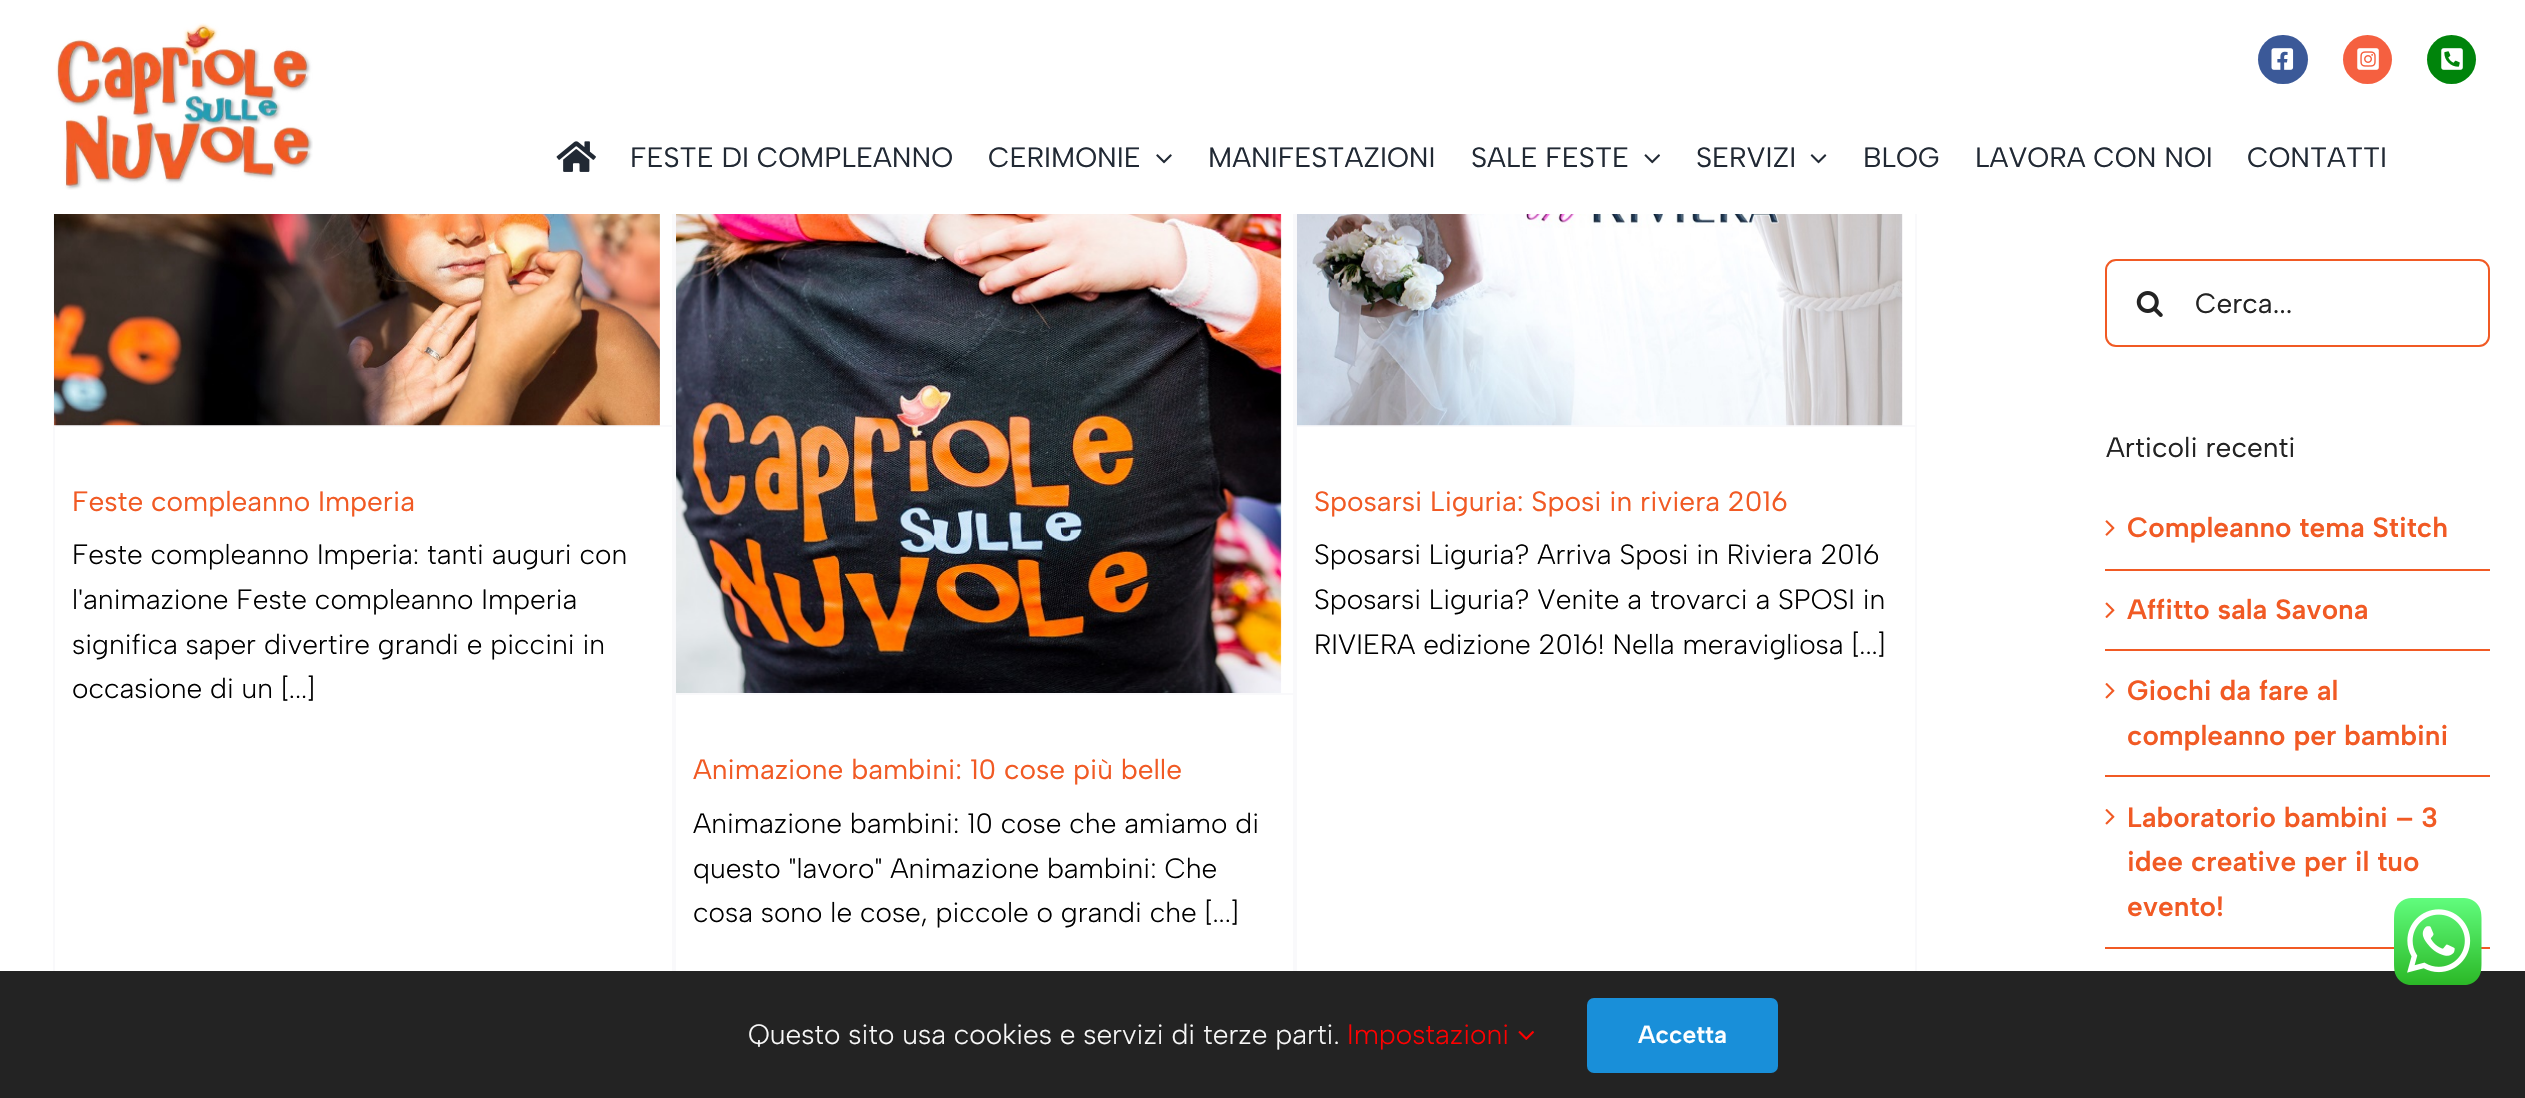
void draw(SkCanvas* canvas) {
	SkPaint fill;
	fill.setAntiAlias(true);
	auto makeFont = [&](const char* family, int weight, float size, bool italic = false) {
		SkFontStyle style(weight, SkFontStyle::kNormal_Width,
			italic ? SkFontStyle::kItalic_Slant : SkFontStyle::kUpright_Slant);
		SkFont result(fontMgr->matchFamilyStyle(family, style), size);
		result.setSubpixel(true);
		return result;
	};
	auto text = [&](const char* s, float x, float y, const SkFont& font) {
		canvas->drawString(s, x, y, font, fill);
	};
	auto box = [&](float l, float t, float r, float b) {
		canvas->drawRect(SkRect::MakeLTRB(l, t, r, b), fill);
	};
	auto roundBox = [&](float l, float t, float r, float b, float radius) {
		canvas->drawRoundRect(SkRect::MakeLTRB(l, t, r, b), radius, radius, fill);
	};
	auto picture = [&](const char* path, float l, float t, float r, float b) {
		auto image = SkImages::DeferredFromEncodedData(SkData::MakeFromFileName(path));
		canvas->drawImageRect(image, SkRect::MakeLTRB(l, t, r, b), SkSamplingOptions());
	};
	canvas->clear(0xFFFFFFFF);
	picture("image0.png", 56, 23, 313, 190);
	fill.setColor(0xFF3B5998);
	roundBox(2258, 35, 2308, 84, 24.5f);
	picture("image1.png", 2271, 48, 2294, 70);
	fill.setColor(0xFFF56040);
	canvas->drawCircle(2367.5f, 59.5f, 24.5f, fill);
	picture("image2.png", 2357, 48, 2379, 70);
	fill.setColor(0xFF00840B);
	canvas->drawCircle(2451.5f, 59.5f, 24.5f, fill);
	picture("image3.png", 2441, 48, 2463, 70);
	picture("image4.png", 556, 141, 596, 172);
	picture("image5.png", 1156, 154, 1172, 164);
	picture("image6.png", 1644, 154, 1660, 164);
	picture("image7.png", 1810, 154, 1827, 164);
	fill.setColor(0xFFF9F9FB);
	box(672, 214, 676, 971);
	box(53, 214, 55, 971);
	box(54, 425, 672, 427);
	picture("image8.png", 54, 214, 660, 426);
	box(1915, 214, 1917, 971);
	box(1297, 425, 1915, 427);
	picture("image9.png", 1297, 214, 1903, 426);
	box(1293, 214, 1297, 971);
	box(676, 693, 1293, 695);
	picture("image10.png", 676, 214, 1282, 693);
	fill.setStyle(SkPaint::kStroke_Style);
	fill.setStrokeWidth(2);
	fill.setColor(0xFFF15A24);
	canvas->drawRoundRect(SkRect::MakeLTRB(2106, 260, 2489, 346), 10, 10, fill);
	picture("image11.png", 2136, 291, 2163, 317);
	fill.setStyle(SkPaint::kFill_Style);
	box(2105, 569, 2490, 571);
	picture("image12.png", 2105, 520, 2115, 536);
	box(2105, 649, 2490, 651);
	picture("image13.png", 2105, 602, 2115, 618);
	box(2105, 775, 2490, 777);
	picture("image14.png", 2105, 683, 2115, 699);
	box(2105, 947, 2490, 949);
	picture("image14.png", 2105, 809, 2115, 825);
	fill.setColor(0xFF232323);
	box(0, 971, 2525, 1098);
	picture("image15.png", 2394, 898, 2482, 985);
	picture("image16.png", 1518, 1031, 1534, 1040);
	fill.setColor(0xFF198FD9);
	roundBox(1587, 998, 1778, 1073, 7);
	auto font1 = makeFont("Albert Sans", 400, 28);
	fill.setColor(0xFF212934);
	text("FESTE DI COMPLEANNO", 630, 167, font1);
	text("CERIMONIE", 988, 167, font1);
	text("MANIFESTAZIONI", 1208, 167, font1);
	text("SALE FESTE", 1471, 167, font1);
	text("SERVIZI", 1696, 167, font1);
	text("BLOG", 1863, 167, font1);
	text("LAVORA CON NOI", 1975, 167, font1);
	text("CONTATTI", 2247, 167, font1);
	fill.setColor(0xFFF15A24);
	text("Feste compleanno Imperia", 72, 511, font1);
	auto font2 = makeFont("Albert Sans", 300, 28);
	fill.setColor(0xFF000000);
	text("Feste compleanno Imperia: tanti auguri con", 72, 564, font2);
	text("l'animazione Feste compleanno Imperia", 72, 609, font2);
	text("significa saper divertire grandi e piccini in", 72, 654, font2);
	text("occasione di un [...]", 72, 698, font2);
	fill.setColor(0xFFF15A24);
	text("Sposarsi Liguria: Sposi in riviera 2016", 1314, 511, font1);
	fill.setColor(0xFF000000);
	text("Sposarsi Liguria? Arriva Sposi in Riviera 2016", 1314, 564, font2);
	text("Sposarsi Liguria? Venite a trovarci a SPOSI in", 1314, 609, font2);
	text("RIVIERA edizione 2016! Nella meravigliosa [...]", 1314, 654, font2);
	fill.setColor(0xFFF15A24);
	text("Animazione bambini: 10 cose più belle", 693, 779, font1);
	fill.setColor(0xFF000000);
	text("Animazione bambini: 10 cose che amiamo di", 693, 833, font2);
	text("questo \"lavoro\" Animazione bambini: Che", 693, 878, font2);
	text("cosa sono le cose, piccole o grandi che [...]", 693, 922, font2);
	fill.setColor(0xFF232323);
	text("Cerca...", 2195, 313, font1);
	text("Articoli recenti", 2106, 457, font1);
	auto font3 = makeFont("Albert Sans", 600, 28);
	fill.setColor(0xFFF15A24);
	text("Compleanno tema Stitch", 2127, 537, font3);
	text("Affitto sala Savona", 2127, 619, font3);
	text("Giochi da fare al", 2127, 700, font3);
	text("compleanno per bambini", 2127, 745, font3);
	text("Laboratorio bambini – 3", 2127, 827, font3);
	text("idee creative per il tuo", 2127, 871, font3);
	text("evento!", 2127, 916, font3);
	fill.setColor(0xFFF9F9F9);
	text("Questo sito usa cookies e servizi di terze parti.", 748, 1044, font2);
	fill.setColor(0xFFFF0000);
	text("Impostazioni", 1347, 1044, font2);
	auto font4 = makeFont("Albert Sans", 600, 24.5f);
	fill.setColor(0xFFFFFFFF);
	text("Accetta", 1638, 1043, font4);
}
